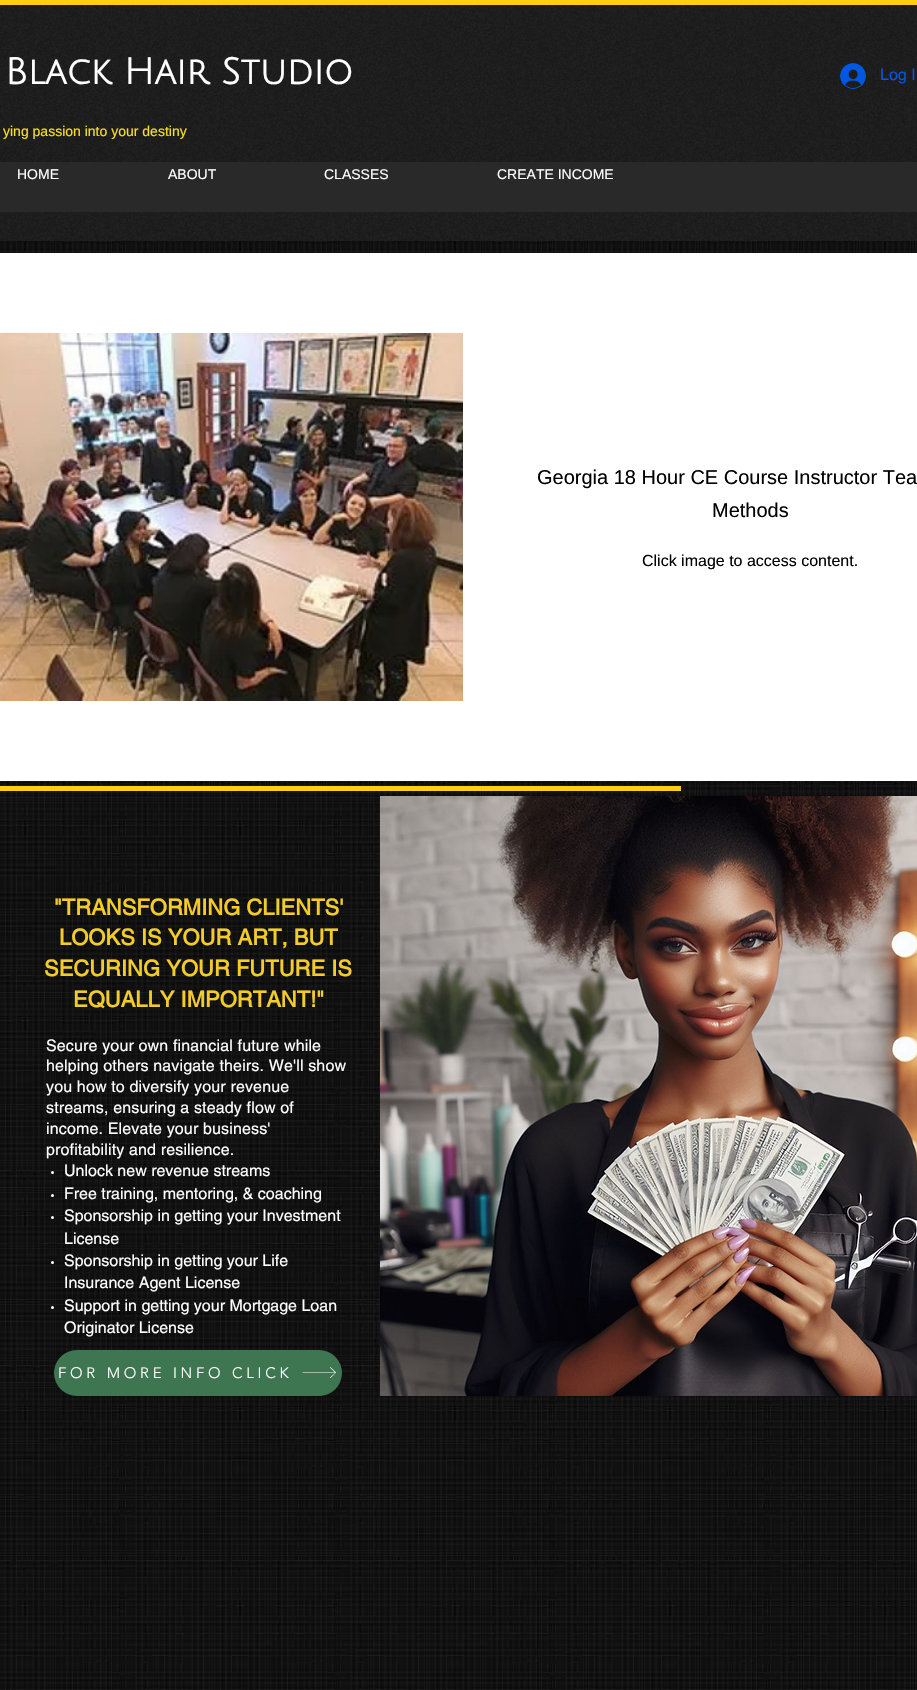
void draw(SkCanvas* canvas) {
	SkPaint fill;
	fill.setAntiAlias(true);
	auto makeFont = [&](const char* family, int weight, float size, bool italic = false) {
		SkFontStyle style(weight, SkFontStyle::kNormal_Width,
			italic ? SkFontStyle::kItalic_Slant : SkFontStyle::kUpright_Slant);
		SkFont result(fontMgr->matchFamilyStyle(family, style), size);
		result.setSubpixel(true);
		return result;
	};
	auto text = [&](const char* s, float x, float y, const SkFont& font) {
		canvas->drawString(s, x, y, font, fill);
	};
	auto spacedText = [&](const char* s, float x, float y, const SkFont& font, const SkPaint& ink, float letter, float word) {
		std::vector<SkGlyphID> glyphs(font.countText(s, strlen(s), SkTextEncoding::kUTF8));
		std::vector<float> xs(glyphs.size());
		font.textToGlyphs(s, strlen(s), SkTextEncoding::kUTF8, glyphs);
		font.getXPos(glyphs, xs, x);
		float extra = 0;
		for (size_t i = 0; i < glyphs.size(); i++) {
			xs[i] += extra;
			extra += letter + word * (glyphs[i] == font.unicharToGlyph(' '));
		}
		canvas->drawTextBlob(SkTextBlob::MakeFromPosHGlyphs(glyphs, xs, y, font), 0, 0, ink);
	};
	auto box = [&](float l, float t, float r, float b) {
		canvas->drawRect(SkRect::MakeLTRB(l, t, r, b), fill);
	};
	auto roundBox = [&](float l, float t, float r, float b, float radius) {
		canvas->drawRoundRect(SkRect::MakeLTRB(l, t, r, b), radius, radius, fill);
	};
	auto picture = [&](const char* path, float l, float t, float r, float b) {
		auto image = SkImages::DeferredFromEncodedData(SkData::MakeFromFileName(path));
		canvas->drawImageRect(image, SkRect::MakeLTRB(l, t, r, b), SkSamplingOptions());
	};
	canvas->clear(0xFFFFFFFF);
	picture("image0.png", 0, 5, 917, 241);
	fill.setColor(0xFFFFD012);
	box(0, 0, 917, 5);
	fill.setColor(0xFF292929);
	box(0, 162, 917, 212);
	picture("image1.png", 840, 63, 866, 89);
	picture("image4.png", 0, 241, 917, 1690);
	fill.setColor(0xFFFFFFFF);
	box(0, 253, 917, 781);
	picture("image2.png", 0, 333, 463, 701);
	fill.setColor(0xFFFFD012);
	box(0, 786, 681, 791);
	picture("image3.png", 380, 796, 917, 1396);
	fill.setColor(0xFFFFFFFF);
	canvas->drawCircle(52.5f, 1172.5f, 1.5f, fill);
	canvas->drawCircle(52.5f, 1195.5f, 1.5f, fill);
	canvas->drawCircle(52.5f, 1217.5f, 1.5f, fill);
	canvas->drawCircle(52.5f, 1262.5f, 1.5f, fill);
	canvas->drawCircle(52.5f, 1307.5f, 1.5f, fill);
	fill.setColor(0xFF3F7652);
	roundBox(54, 1350, 342, 1396, 23);
	fill.setColor(0xFFFFFFFF);
	canvas->drawPath(SkPathBuilder().moveTo(330.5f, 1367).lineTo(330, 1367.5f).lineTo(335, 1372.5f).lineTo(302.5f, 1372.5f).lineTo(302.5f, 1373).lineTo(335, 1373).lineTo(330, 1377.5f).lineTo(330.5f, 1378).lineTo(336, 1372.5f).close().detach(), fill);
	auto font1 = makeFont("Julius Sans One", 700, 36);
	text("Black Hair Studio", 5, 84, font1);
	auto font2 = makeFont("Liberation Sans", 400, 14);
	fill.setColor(0xFFF6E024);
	text("ying passion into your destiny", 3, 136, font2);
	auto font3 = makeFont("helvetica", 400, 16);
	fill.setColor(0xFF0057E1);
	text("Log I", 880, 80, font3);
	fill.setColor(0xFFFFFFFF);
	text("HOME", 17, 179, font2);
	text("ABOUT", 168, 179, font2);
	text("CLASSES", 324, 179, font2);
	text("CREATE INCOME", 497, 179, font2);
	auto font4 = makeFont("Liberation Sans", 400, 20);
	fill.setColor(0xFF000000);
	text("Georgia 18 Hour CE Course Instructor Tea", 537, 484, font4);
	text("Methods", 712, 517, font4);
	auto font5 = makeFont("Liberation Sans", 400, 16);
	text("Click image to access content.", 642, 566, font5);
	auto font6 = makeFont("helvetica", 700, 22);
	fill.setColor(0xFFF4CC2A);
	text("\"TRANSFORMING CLIENTS'", 54, 915, font6);
	text("LOOKS IS YOUR ART, BUT", 59, 945, font6);
	text("SECURING YOUR FUTURE IS", 44, 976, font6);
	text("EQUALLY IMPORTANT!\"", 73, 1007, font6);
	fill.setColor(0xFFFFFFFF);
	spacedText("Secure your own financial future while", 46, 1051, font3, fill, 0.15f, 0);
	spacedText("helping others navigate theirs. We'll show", 46, 1071, font3, fill, 0.15f, 0);
	spacedText("you how to diversify your revenue", 46, 1092, font3, fill, 0.15f, 0);
	spacedText("streams, ensuring a steady flow of", 46, 1113, font3, fill, 0.15f, 0);
	spacedText("income. Elevate your business'", 46, 1134, font3, fill, 0.15f, 0);
	spacedText("profitability and resilience.", 46, 1155, font3, fill, 0.15f, 0);
	text("Unlock new revenue streams", 64, 1176, font3);
	text("Free training, mentoring, & coaching", 64, 1199, font3);
	text("Sponsorship in getting your Investment", 64, 1221, font3);
	text("License", 64, 1244, font3);
	text("Sponsorship in getting your Life", 64, 1266, font3);
	text("Insurance Agent License", 64, 1288, font3);
	text("Support in getting your Mortgage Loan", 64, 1311, font3);
	text("Originator License", 64, 1333, font3);
	auto font7 = makeFont("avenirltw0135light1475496", 300, 15);
	spacedText("FOR MORE INFO CLICK", 58, 1378, font7, fill, 3.75f, 0);
}
